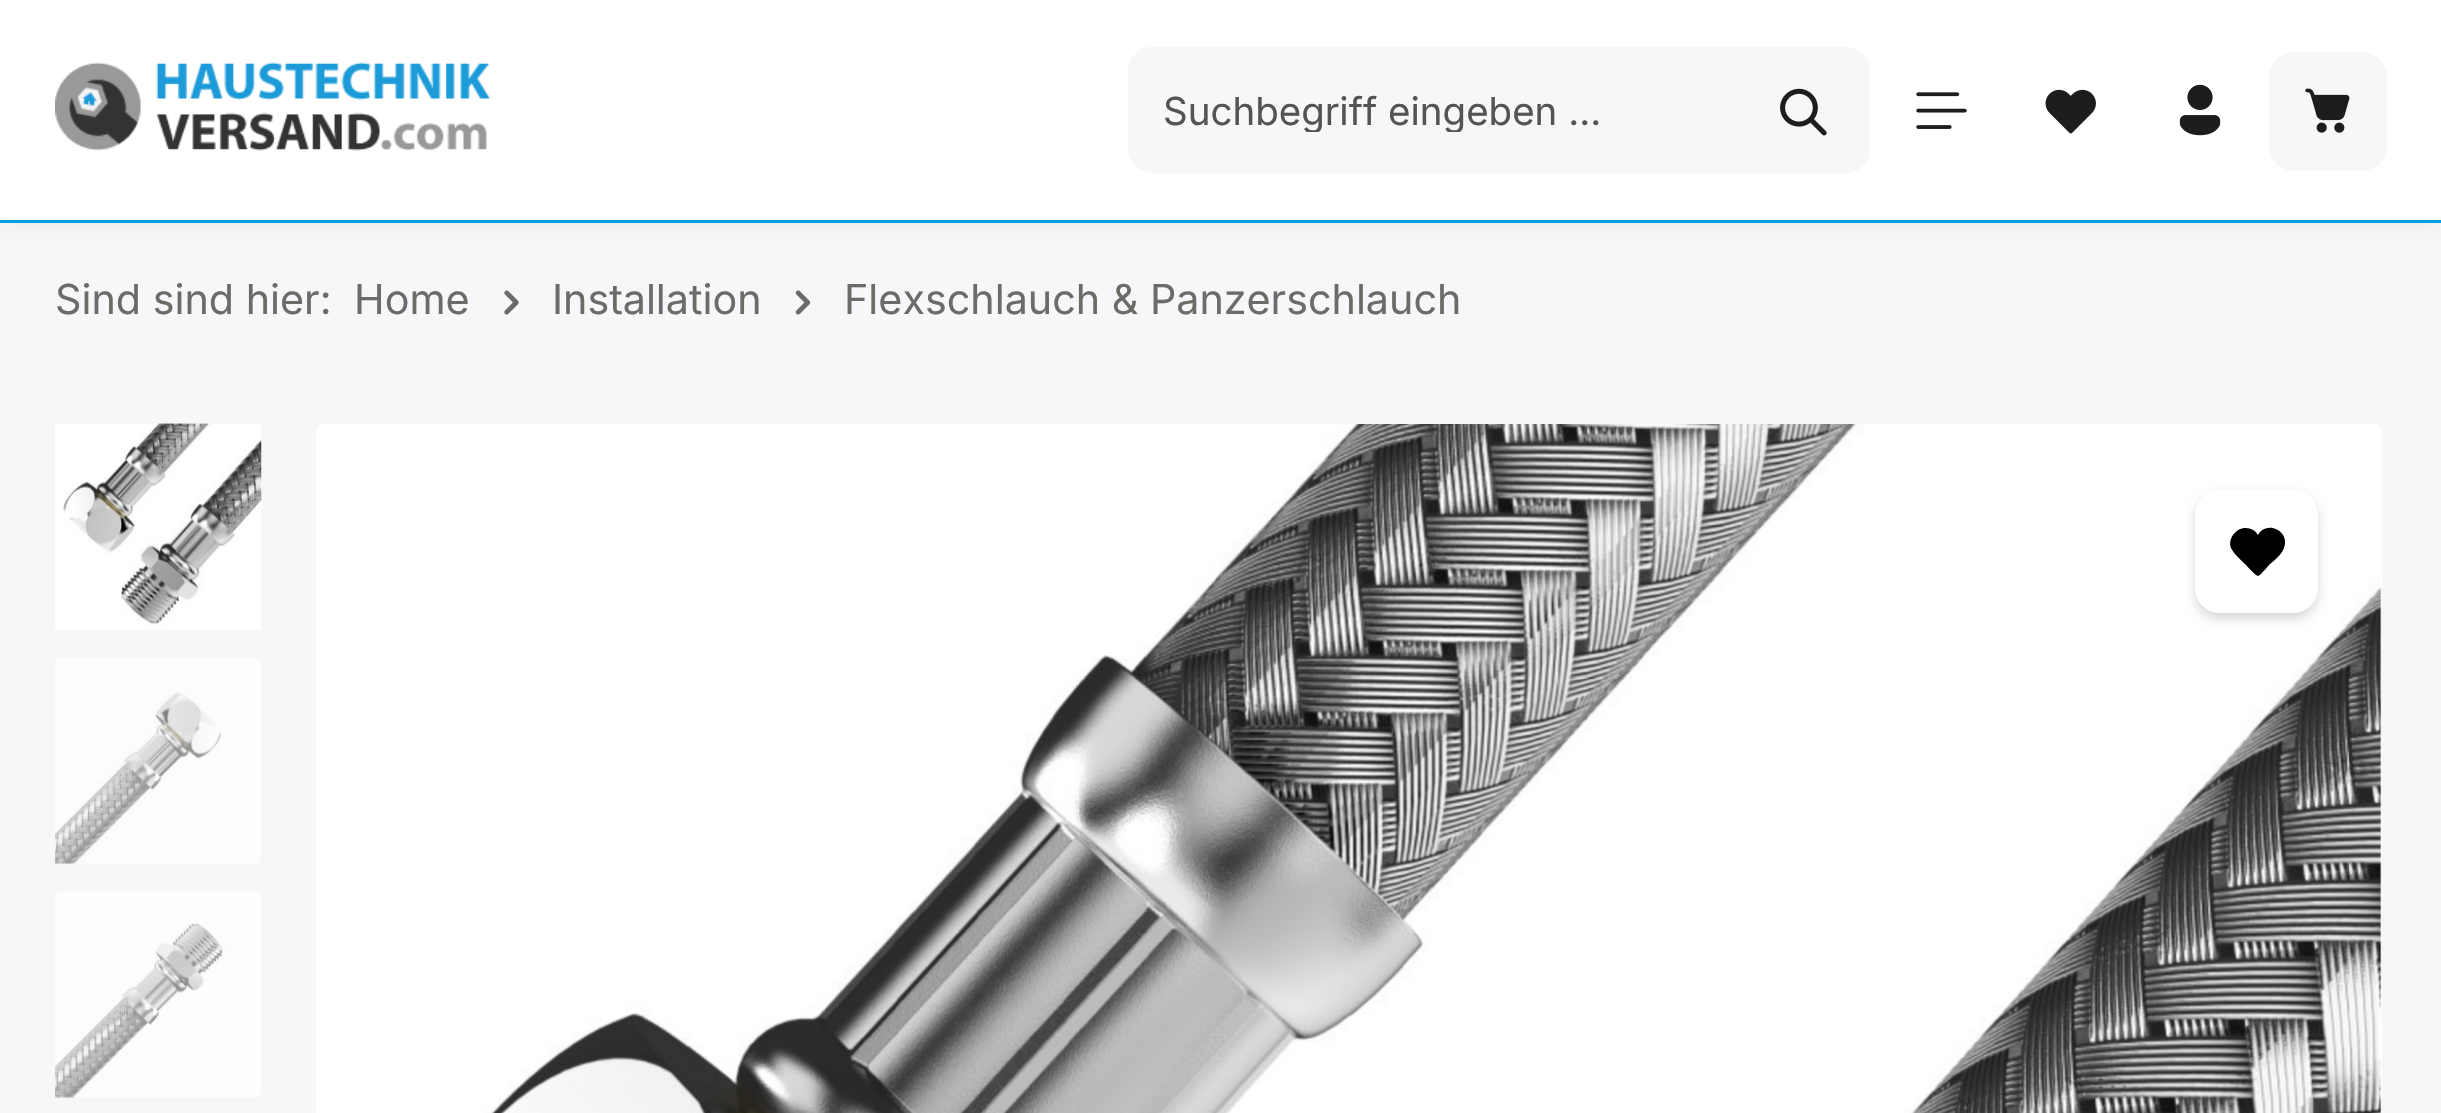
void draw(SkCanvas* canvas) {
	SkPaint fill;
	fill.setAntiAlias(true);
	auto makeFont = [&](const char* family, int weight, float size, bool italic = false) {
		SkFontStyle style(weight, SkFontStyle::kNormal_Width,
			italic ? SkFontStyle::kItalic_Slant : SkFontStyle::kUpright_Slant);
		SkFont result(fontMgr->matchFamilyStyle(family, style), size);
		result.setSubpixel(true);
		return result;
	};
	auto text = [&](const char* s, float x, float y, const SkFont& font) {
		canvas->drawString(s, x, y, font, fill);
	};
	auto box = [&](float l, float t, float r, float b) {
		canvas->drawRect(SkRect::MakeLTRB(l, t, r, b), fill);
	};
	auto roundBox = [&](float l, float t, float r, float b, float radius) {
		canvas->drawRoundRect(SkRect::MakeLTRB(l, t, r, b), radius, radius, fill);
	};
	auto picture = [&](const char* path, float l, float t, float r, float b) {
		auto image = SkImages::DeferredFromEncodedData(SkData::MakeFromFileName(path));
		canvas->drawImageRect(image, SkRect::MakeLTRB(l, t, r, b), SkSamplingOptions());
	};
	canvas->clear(0xFFF6F7F9);
	fill.setColor(0x1216181D);
	fill.setMaskFilter(SkMaskFilter::MakeBlur(kNormal_SkBlurStyle, 14));
	canvas->drawRect(SkRect::MakeLTRB(0, 0, 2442, 223), fill);
	fill.setMaskFilter(nullptr);
	fill.setColor(0xFFFFFFFF);
	box(0, 0, 2441, 220);
	picture("image0.png", 55, 62, 490, 151);
	fill.setColor(0xFFF6F7F9);
	canvas->drawPath(SkPathBuilder().moveTo(1153, 47).lineTo(1744, 47).lineTo(1744, 173).lineTo(1153, 173).cubicTo(1139, 173, 1128, 162, 1128, 148).lineTo(1128, 72).cubicTo(1128, 58, 1139, 47, 1153, 47).close().detach(), fill);
	canvas->drawPath(SkPathBuilder(SkPathFillType::kEvenOdd).moveTo(1152, 47).lineTo(1744, 47).lineTo(1744, 173).lineTo(1152, 173).cubicTo(1139, 173, 1128, 162, 1128, 148).lineTo(1128, 72).cubicTo(1128, 58, 1139, 47, 1152, 47).close().moveTo(1152, 50).lineTo(1744, 50).lineTo(1744, 170).lineTo(1152, 170).cubicTo(1140, 170, 1130, 161, 1130, 148).lineTo(1130, 72).cubicTo(1130, 59, 1140, 50, 1152, 50).close().detach(), fill);
	canvas->drawPath(SkPathBuilder().moveTo(1741, 47).lineTo(1845, 47).cubicTo(1859, 47, 1870, 58, 1870, 72).lineTo(1870, 148).cubicTo(1870, 162, 1859, 173, 1845, 173).lineTo(1741, 173).close().detach(), fill);
	canvas->drawPath(SkPathBuilder(SkPathFillType::kEvenOdd).moveTo(1741, 47).lineTo(1845, 47).cubicTo(1859, 47, 1870, 58, 1870, 72).lineTo(1870, 148).cubicTo(1870, 162, 1859, 173, 1845, 173).lineTo(1741, 173).close().moveTo(1741, 50).lineTo(1845, 50).cubicTo(1857, 50, 1867, 59, 1867, 72).lineTo(1867, 148).cubicTo(1867, 161, 1857, 170, 1845, 170).lineTo(1741, 170).close().detach(), fill);
	picture("image1.png", 1780, 88, 1827, 136);
	picture("image2.png", 1916, 92, 1967, 129);
	picture("image3.png", 2045, 89, 2096, 134);
	picture("image4.png", 2179, 84, 2221, 136);
	roundBox(2269, 52, 2387, 171, 25);
	picture("image5.png", 2305, 88, 2350, 133);
	fill.setColor(0xFF009FE3);
	box(0, 220, 2441, 223);
	picture("image6.png", 504, 290, 519, 315);
	picture("image7.png", 795, 290, 811, 315);
	picture("image8.png", 55, 423, 262, 630);
	fill.setColor(0xFFFBFBFC);
	roundBox(55, 657, 261, 864, 8);
	picture("image9.png", 55, 658, 261, 864);
	roundBox(55, 891, 261, 1097, 8);
	picture("image10.png", 55, 892, 261, 1098);
	fill.setColor(0xFFFFFFFF);
	roundBox(316, 424, 2382, 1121, 8);
	picture("image11.png", 320, 424, 2382, 1113);
	canvas->save();
	canvas->clipPath(SkPathBuilder(SkPathFillType::kEvenOdd).moveTo(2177, 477).lineTo(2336, 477).lineTo(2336, 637).lineTo(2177, 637).close().moveTo(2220, 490).lineTo(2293, 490).cubicTo(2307, 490, 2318, 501, 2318, 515).lineTo(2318, 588).cubicTo(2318, 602, 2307, 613, 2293, 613).lineTo(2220, 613).cubicTo(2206, 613, 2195, 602, 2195, 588).lineTo(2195, 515).cubicTo(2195, 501, 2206, 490, 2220, 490).close().detach(), true);
	fill.setColor(0x26000000);
	fill.setMaskFilter(SkMaskFilter::MakeBlur(kNormal_SkBlurStyle, 5.5f));
	canvas->drawRoundRect(SkRect::MakeLTRB(2195, 495, 2318, 619), 25, 25, fill);
	fill.setMaskFilter(nullptr);
	canvas->restore();
	fill.setColor(0xFF000000);
	canvas->drawPath(SkPathBuilder().moveTo(2260, 532).lineTo(2258, 535).cubicTo(2256, 532, 2254, 530, 2251, 529).cubicTo(2239, 524, 2227, 537, 2231, 548).cubicTo(2234, 554, 2241, 560, 2245, 564).cubicTo(2247, 566, 2256, 576, 2258, 576).cubicTo(2260, 576, 2268, 566, 2270, 564).cubicTo(2275, 560, 2282, 554, 2284, 548).cubicTo(2290, 533, 2271, 521, 2260, 532).close().detach(), fill);
	canvas->save();
	canvas->clipRect(SkRect::MakeLTRB(1163, 85, 1711, 132));
	auto font1 = makeFont("Inter", 400, 38.5f);
	fill.setColor(0xFF535453);
	text("Suchbegriff eingeben ...", 1163, 125, font1);
	canvas->restore();
	auto font2 = makeFont("Inter", 400, 41.25f);
	fill.setColor(0xFF6B6B67);
	text("Sind sind hier:", 55, 314, font2);
	text("Home", 354, 314, font2);
	text("Installation", 552, 314, font2);
	text("Flexschlauch & Panzerschlauch", 844, 314, font2);
}
